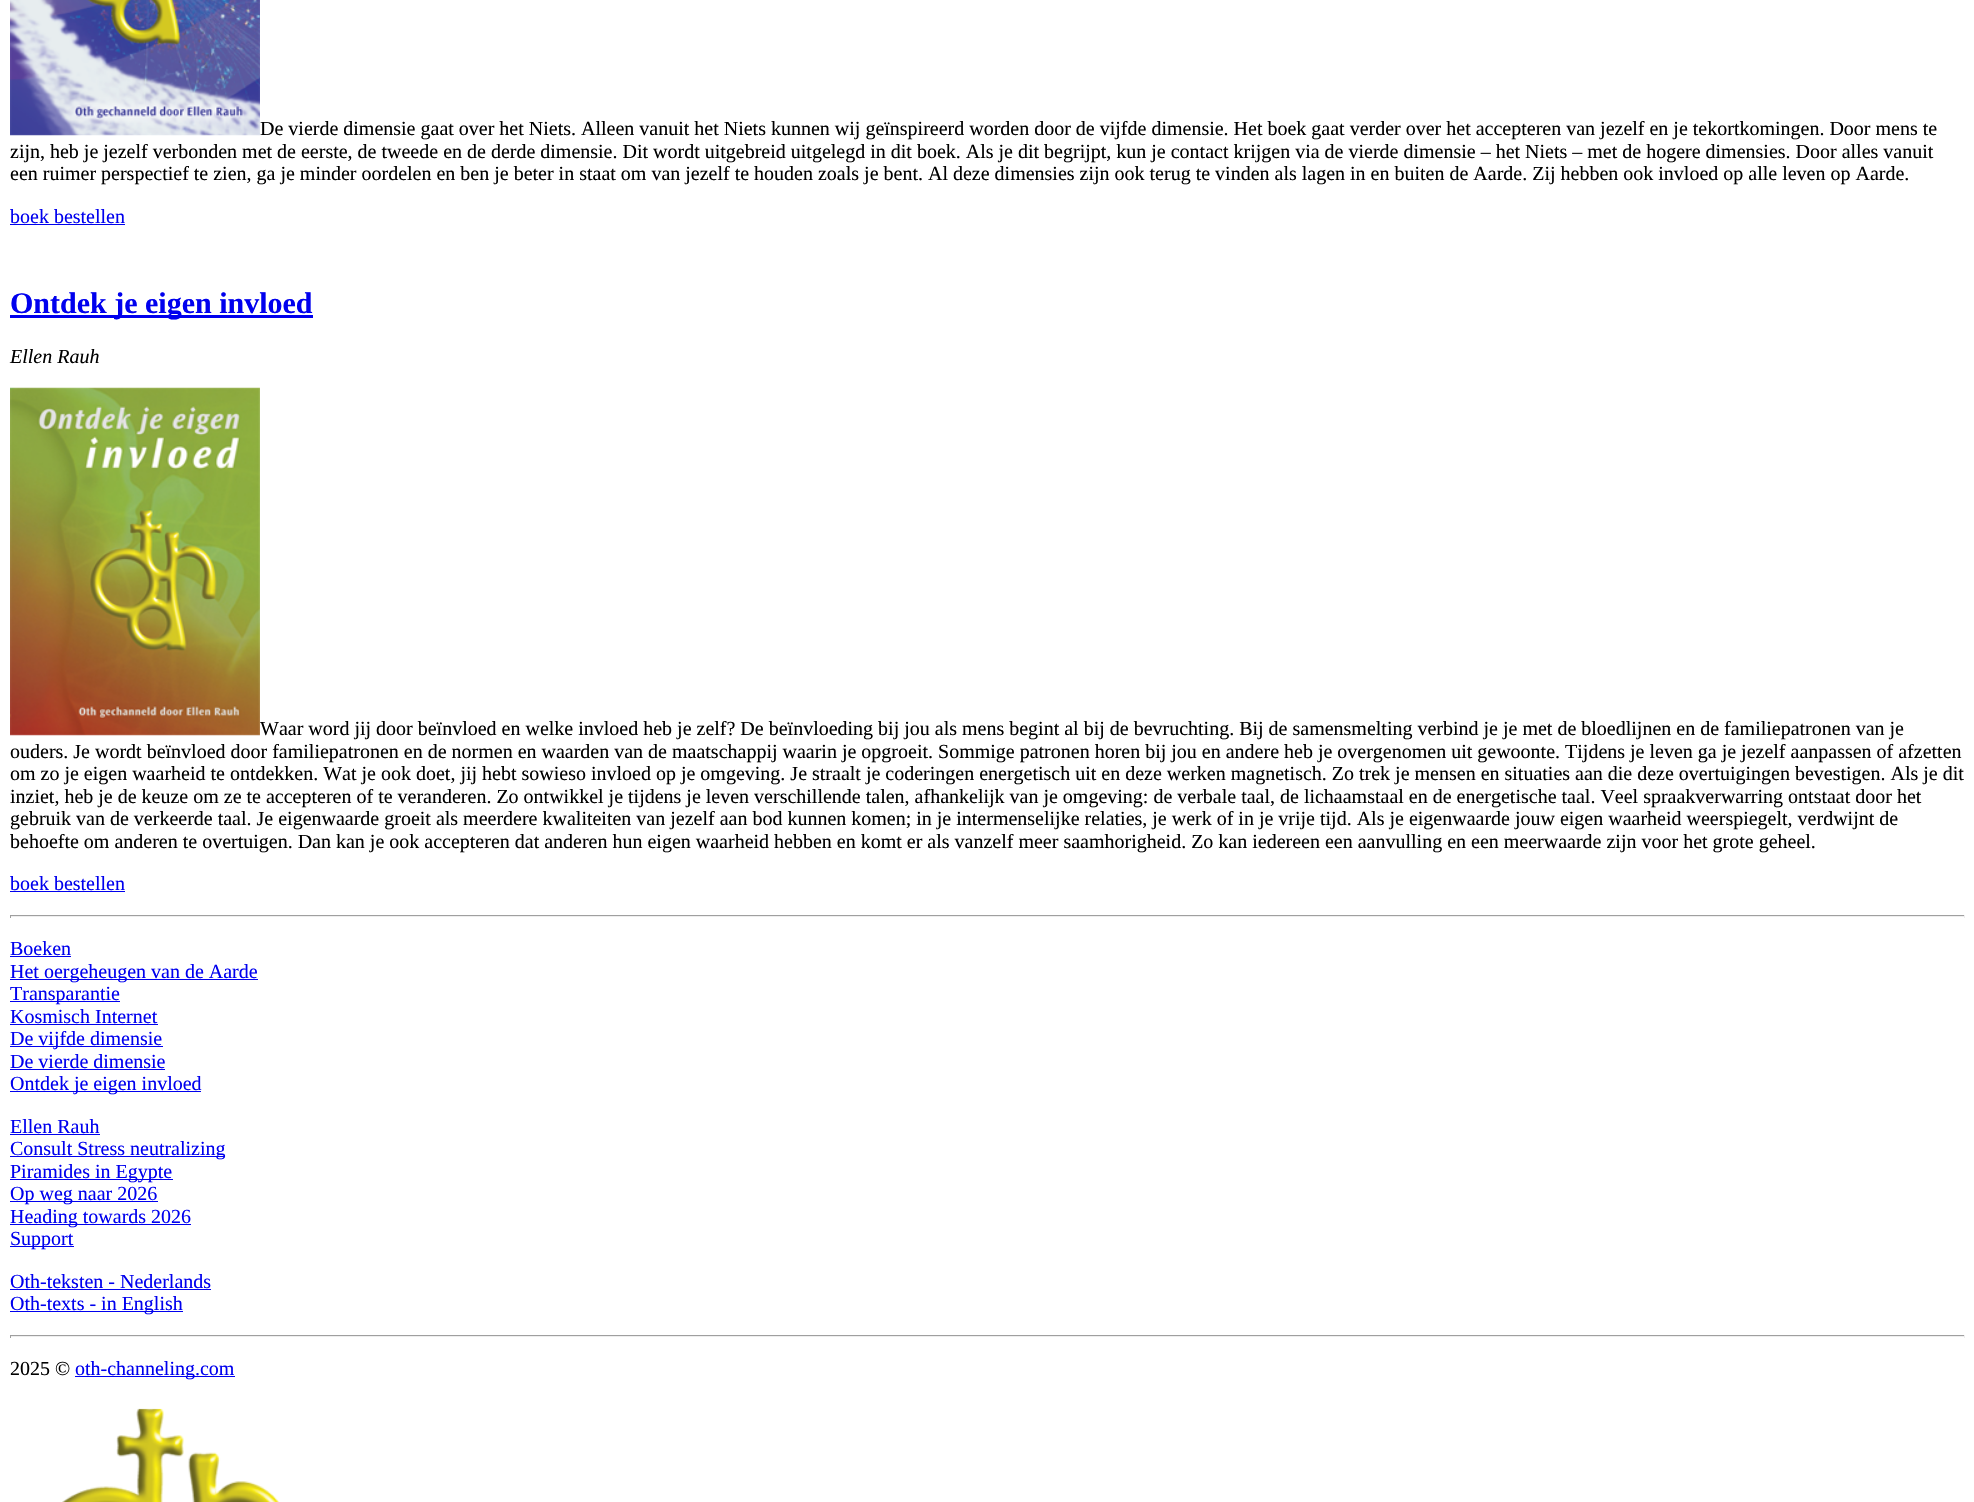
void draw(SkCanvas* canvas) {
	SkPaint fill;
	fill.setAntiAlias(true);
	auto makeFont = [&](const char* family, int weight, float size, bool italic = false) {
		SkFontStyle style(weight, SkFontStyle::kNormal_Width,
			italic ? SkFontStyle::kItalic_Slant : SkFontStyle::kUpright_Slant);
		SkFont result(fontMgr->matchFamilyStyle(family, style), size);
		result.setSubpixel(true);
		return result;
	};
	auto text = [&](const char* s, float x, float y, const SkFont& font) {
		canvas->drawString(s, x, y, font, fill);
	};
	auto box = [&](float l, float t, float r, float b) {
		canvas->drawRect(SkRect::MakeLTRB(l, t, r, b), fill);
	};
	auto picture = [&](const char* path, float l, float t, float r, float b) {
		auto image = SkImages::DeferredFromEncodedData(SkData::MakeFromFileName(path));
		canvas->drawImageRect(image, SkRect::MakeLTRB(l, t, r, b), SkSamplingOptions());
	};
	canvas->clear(0xFFFFFFFF);
	picture("image0.png", 10, 0, 260, 136);
	fill.setColor(0xFF0000EE);
	box(10, 224, 125, 225);
	box(10, 315, 313, 318);
	picture("image1.png", 10, 387, 260, 736);
	box(10, 891, 125, 892);
	fill.setColor(0xFF9F9F9F);
	box(10, 915, 1965, 916);
	fill.setColor(0xFFEEEEEE);
	box(1964, 915, 1965, 918);
	box(10, 916, 1965, 917);
	fill.setColor(0xFF9F9F9F);
	box(10, 915, 11, 918);
	fill.setColor(0xFF0000EE);
	box(10, 956, 71, 957);
	box(10, 979, 258, 980);
	box(10, 1001, 120, 1002);
	box(10, 1024, 158, 1025);
	box(10, 1046, 163, 1047);
	box(10, 1069, 165, 1070);
	box(10, 1091, 201, 1092);
	box(10, 1134, 100, 1135);
	box(10, 1156, 225, 1157);
	box(10, 1179, 173, 1180);
	box(10, 1201, 158, 1202);
	box(10, 1224, 191, 1225);
	box(10, 1246, 74, 1247);
	box(10, 1289, 211, 1290);
	box(10, 1311, 183, 1312);
	fill.setColor(0xFF9F9F9F);
	box(10, 1335, 1965, 1336);
	fill.setColor(0xFFEEEEEE);
	box(1964, 1335, 1965, 1338);
	box(10, 1336, 1965, 1337);
	fill.setColor(0xFF9F9F9F);
	box(10, 1335, 11, 1338);
	fill.setColor(0xFF0000EE);
	box(75, 1376, 235, 1377);
	picture("image2.png", 62, 1408, 279, 1502);
	auto font1 = makeFont("Liberation Serif", 400, 20);
	fill.setColor(0xFF000000);
	text("De vierde dimensie gaat over het Niets. Alleen vanuit het Niets kunnen wij geïnspireerd worden door de vijfde dimensie. Het boek gaat verder over het accepteren van jezelf en je tekortkomingen. Door mens te", 260, 135, font1);
	text("zijn, heb je jezelf verbonden met de eerste, de tweede en de derde dimensie. Dit wordt uitgebreid uitgelegd in dit boek. Als je dit begrijpt, kun je contact krijgen via de vierde dimensie – het Niets – met de hogere dimensies. Door alles vanuit", 10, 158, font1);
	text("een ruimer perspectief te zien, ga je minder oordelen en ben je beter in staat om van jezelf te houden zoals je bent. Al deze dimensies zijn ook terug te vinden als lagen in en buiten de Aarde. Zij hebben ook invloed op alle leven op Aarde.", 10, 180, font1);
	fill.setColor(0xFF0000EE);
	text("boek bestellen", 10, 223, font1);
	auto font2 = makeFont("Liberation Serif", 700, 30);
	text("Ontdek je eigen invloed", 10, 313, font2);
	auto font3 = makeFont("Liberation Serif", 400, 20, true);
	fill.setColor(0xFF000000);
	text("Ellen Rauh", 10, 363, font3);
	text("Waar word jij door beïnvloed en welke invloed heb je zelf? De beïnvloeding bij jou als mens begint al bij de bevruchting. Bij de samensmelting verbind je je met de bloedlijnen en de familiepatronen van je", 260, 735, font1);
	text("ouders. Je wordt beïnvloed door familiepatronen en de normen en waarden van de maatschappij waarin je opgroeit. Sommige patronen horen bij jou en andere heb je overgenomen uit gewoonte. Tijdens je leven ga je jezelf aanpassen of afzetten", 10, 758, font1);
	text("om zo je eigen waarheid te ontdekken. Wat je ook doet, jij hebt sowieso invloed op je omgeving. Je straalt je coderingen energetisch uit en deze werken magnetisch. Zo trek je mensen en situaties aan die deze overtuigingen bevestigen. Als je dit", 10, 780, font1);
	text("inziet, heb je de keuze om ze te accepteren of te veranderen. Zo ontwikkel je tijdens je leven verschillende talen, afhankelijk van je omgeving: de verbale taal, de lichaamstaal en de energetische taal. Veel spraakverwarring ontstaat door het", 10, 803, font1);
	text("gebruik van de verkeerde taal. Je eigenwaarde groeit als meerdere kwaliteiten van jezelf aan bod kunnen komen; in je intermenselijke relaties, je werk of in je vrije tijd. Als je eigenwaarde jouw eigen waarheid weerspiegelt, verdwijnt de", 10, 825, font1);
	text("behoefte om anderen te overtuigen. Dan kan je ook accepteren dat anderen hun eigen waarheid hebben en komt er als vanzelf meer saamhorigheid. Zo kan iedereen een aanvulling en een meerwaarde zijn voor het grote geheel.", 10, 848, font1);
	fill.setColor(0xFF0000EE);
	text("boek bestellen", 10, 890, font1);
	text("Boeken", 10, 955, font1);
	text("Het oergeheugen van de Aarde", 10, 978, font1);
	text("Transparantie", 10, 1000, font1);
	text("Kosmisch Internet", 10, 1023, font1);
	text("De vijfde dimensie", 10, 1045, font1);
	text("De vierde dimensie", 10, 1068, font1);
	text("Ontdek je eigen invloed", 10, 1090, font1);
	text("Ellen Rauh", 10, 1133, font1);
	text("Consult Stress neutralizing", 10, 1155, font1);
	text("Piramides in Egypte", 10, 1178, font1);
	text("Op weg naar 2026", 10, 1200, font1);
	text("Heading towards 2026", 10, 1223, font1);
	text("Support", 10, 1245, font1);
	text("Oth-teksten - Nederlands", 10, 1288, font1);
	text("Oth-texts - in English", 10, 1310, font1);
	fill.setColor(0xFF000000);
	text("2025 ©", 10, 1375, font1);
	fill.setColor(0xFF0000EE);
	text("oth-channeling.com", 75, 1375, font1);
}
